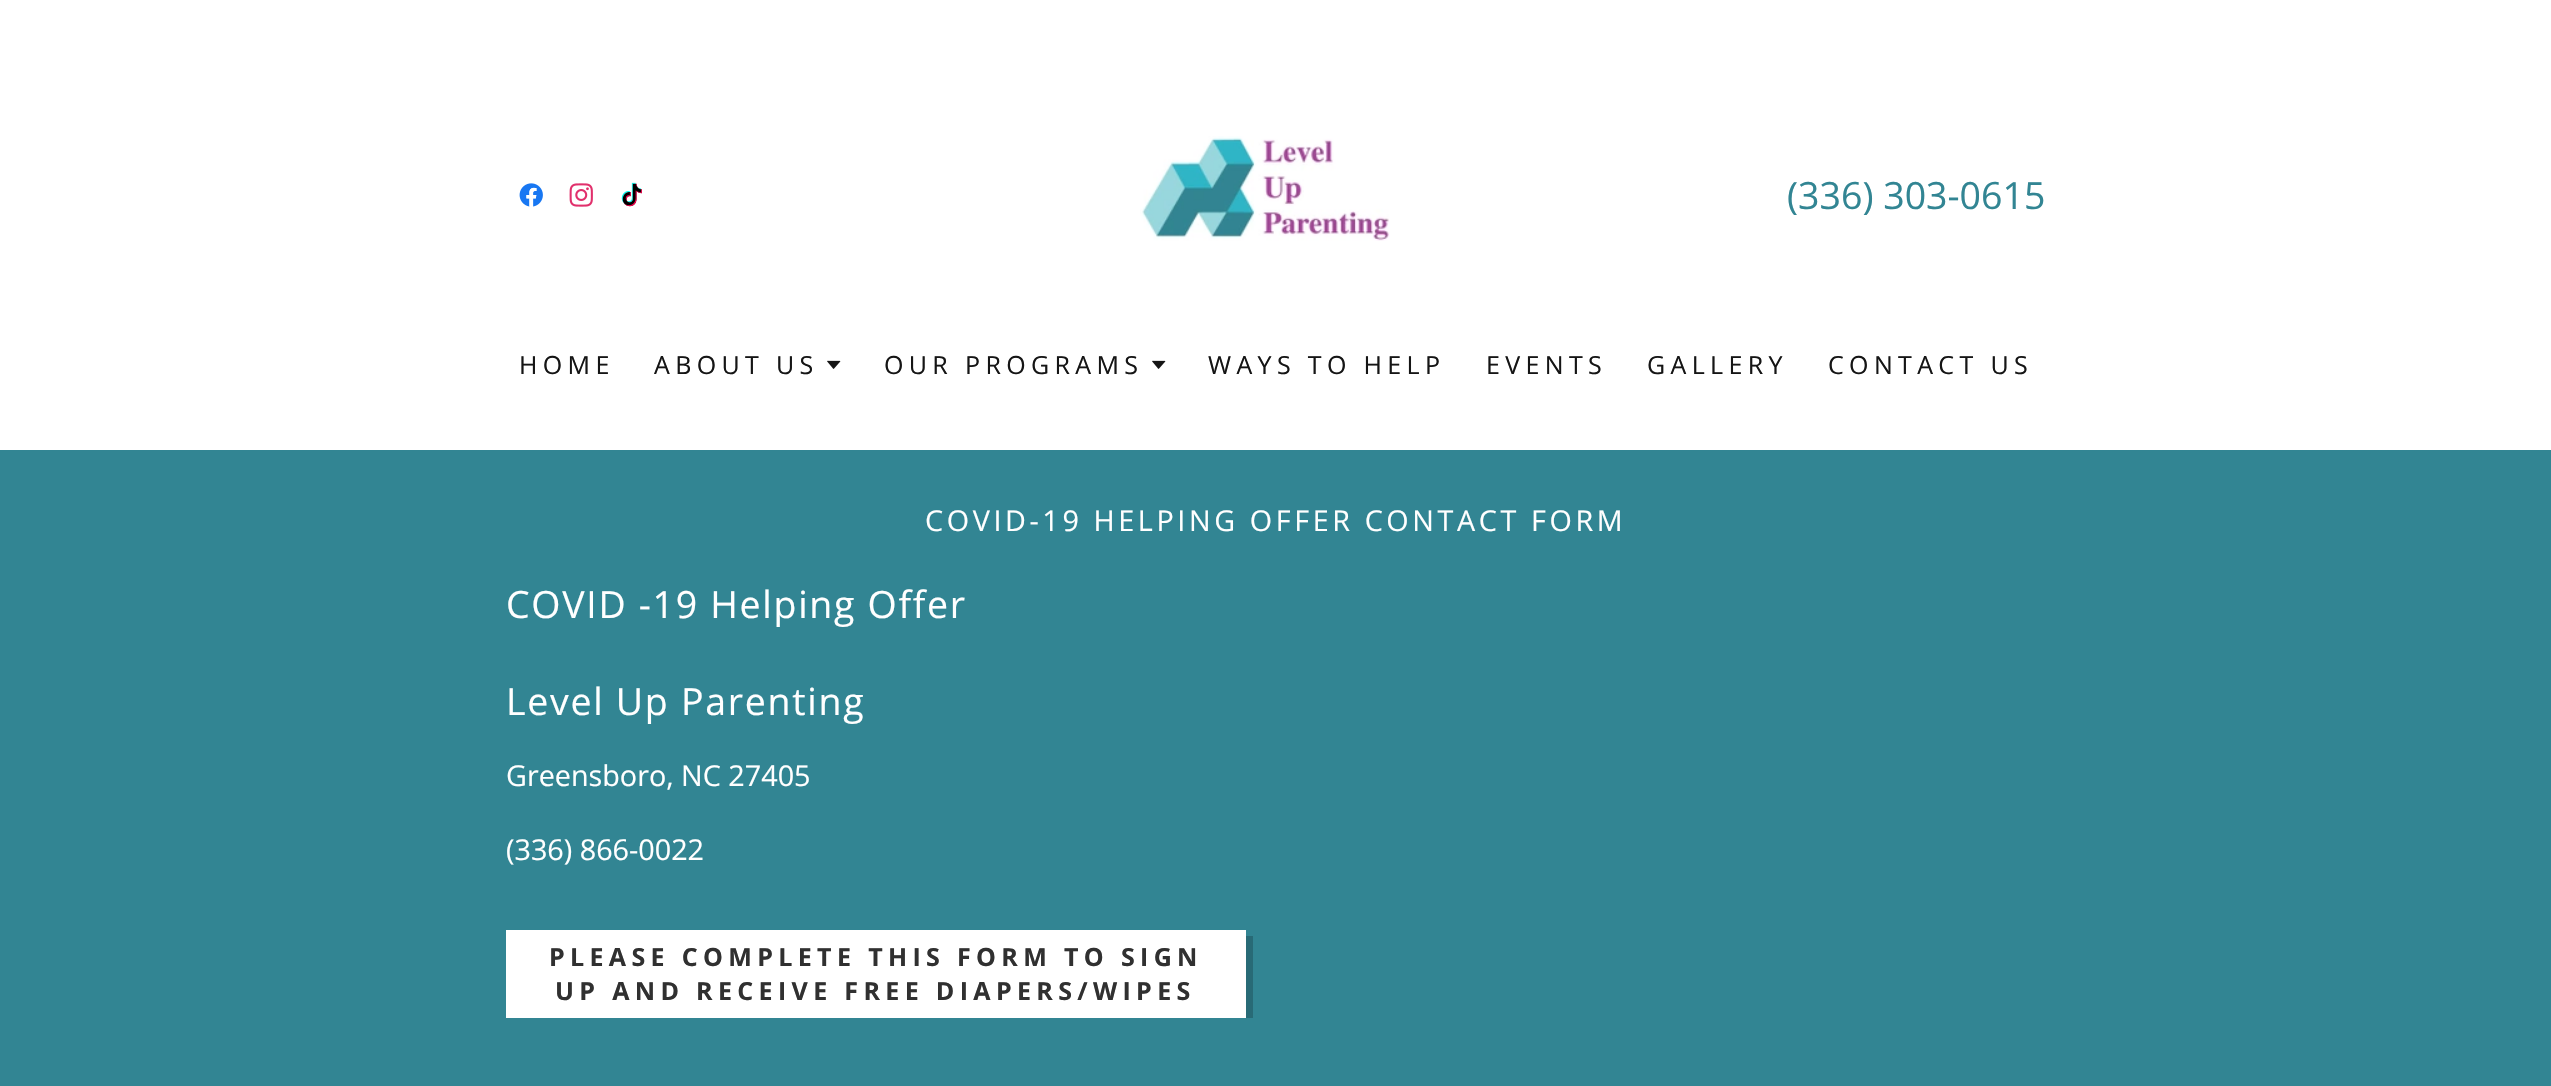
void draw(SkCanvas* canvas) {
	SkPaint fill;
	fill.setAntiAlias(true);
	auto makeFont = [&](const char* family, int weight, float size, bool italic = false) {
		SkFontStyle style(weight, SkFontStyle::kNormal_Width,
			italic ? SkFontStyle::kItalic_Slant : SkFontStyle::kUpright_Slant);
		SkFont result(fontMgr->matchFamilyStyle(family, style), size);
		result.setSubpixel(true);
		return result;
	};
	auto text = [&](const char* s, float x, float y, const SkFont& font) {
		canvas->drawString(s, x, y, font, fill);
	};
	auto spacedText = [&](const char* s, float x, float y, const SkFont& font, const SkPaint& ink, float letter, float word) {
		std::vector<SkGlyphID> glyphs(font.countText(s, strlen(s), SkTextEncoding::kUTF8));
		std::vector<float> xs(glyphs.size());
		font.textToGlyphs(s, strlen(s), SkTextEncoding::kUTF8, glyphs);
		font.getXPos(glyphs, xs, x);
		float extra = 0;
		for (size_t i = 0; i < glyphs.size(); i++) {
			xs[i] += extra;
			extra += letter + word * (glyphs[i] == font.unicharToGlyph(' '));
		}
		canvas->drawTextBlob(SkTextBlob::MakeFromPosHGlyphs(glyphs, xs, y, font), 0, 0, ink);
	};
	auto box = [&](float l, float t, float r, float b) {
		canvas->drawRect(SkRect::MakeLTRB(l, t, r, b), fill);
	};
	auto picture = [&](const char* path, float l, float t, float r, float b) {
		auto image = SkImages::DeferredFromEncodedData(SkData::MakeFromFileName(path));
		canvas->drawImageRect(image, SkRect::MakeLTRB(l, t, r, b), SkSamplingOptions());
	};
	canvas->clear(0xFF328593);
	fill.setColor(0xFFFFFFFF);
	box(0, 0, 2551, 450);
	picture("image0.png", 519, 183, 543, 207);
	picture("image1.png", 569, 183, 593, 207);
	picture("image2.png", 621, 182, 642, 207);
	picture("image3.png", 1140, 136, 1390, 241);
	picture("image4.png", 827, 360, 841, 369);
	picture("image4.png", 1152, 360, 1166, 369);
	box(506, 930, 1246, 1018);
	canvas->save();
	canvas->clipRect(SkRect::MakeLTRB(506, 580, 2046, 1018));
	fill.setColor(0xFF286A76);
	canvas->drawPath(SkPathBuilder().moveTo(513, 1018).lineTo(513, 1024).lineTo(1253, 1024).lineTo(1253, 936).lineTo(1246, 936).lineTo(1246, 1018).close().detach(), fill);
	canvas->restore();
	auto font1 = makeFont("Open Sans", 400, 37.5f);
	fill.setColor(0xFF328593);
	text("(336) 303-0615", 1787, 209, font1);
	auto font2 = makeFont("Open Sans", 400, 25);
	fill.setColor(0xFF151515);
	spacedText("HOME", 519, 374, font2, fill, 5.35f, 0);
	spacedText("ABOUT US", 654, 374, font2, fill, 5.35f, 0);
	spacedText("OUR PROGRAMS", 884, 374, font2, fill, 5.35f, 0);
	spacedText("WAYS TO HELP", 1208, 374, font2, fill, 5.35f, 0);
	spacedText("EVENTS", 1486, 374, font2, fill, 5.35f, 0);
	spacedText("GALLERY", 1647, 374, font2, fill, 5.35f, 0);
	spacedText("CONTACT US", 1828, 374, font2, fill, 5.35f, 0);
	auto font3 = makeFont("Open Sans", 400, 28.75f);
	fill.setColor(0xFFFFFFFF);
	spacedText("COVID-19 HELPING OFFER CONTACT FORM", 925, 531, font3, fill, 3.6f, 0);
	spacedText("COVID -19 Helping Offer", 506, 618, font1, fill, 1.7f, 0);
	spacedText("Level Up Parenting", 506, 715, font1, fill, 1.7f, 0);
	text("Greensboro, NC 27405", 506, 786, font3);
	text("(336) 866-0022", 506, 860, font3);
	auto font4 = makeFont("Open Sans", 700, 25);
	fill.setColor(0xFF303030);
	spacedText("PLEASE COMPLETE THIS FORM TO SIGN", 549, 966, font4, fill, 5.35f, 0);
	spacedText("UP AND RECEIVE FREE DIAPERS/WIPES", 555, 1000, font4, fill, 5.35f, 0);
}
